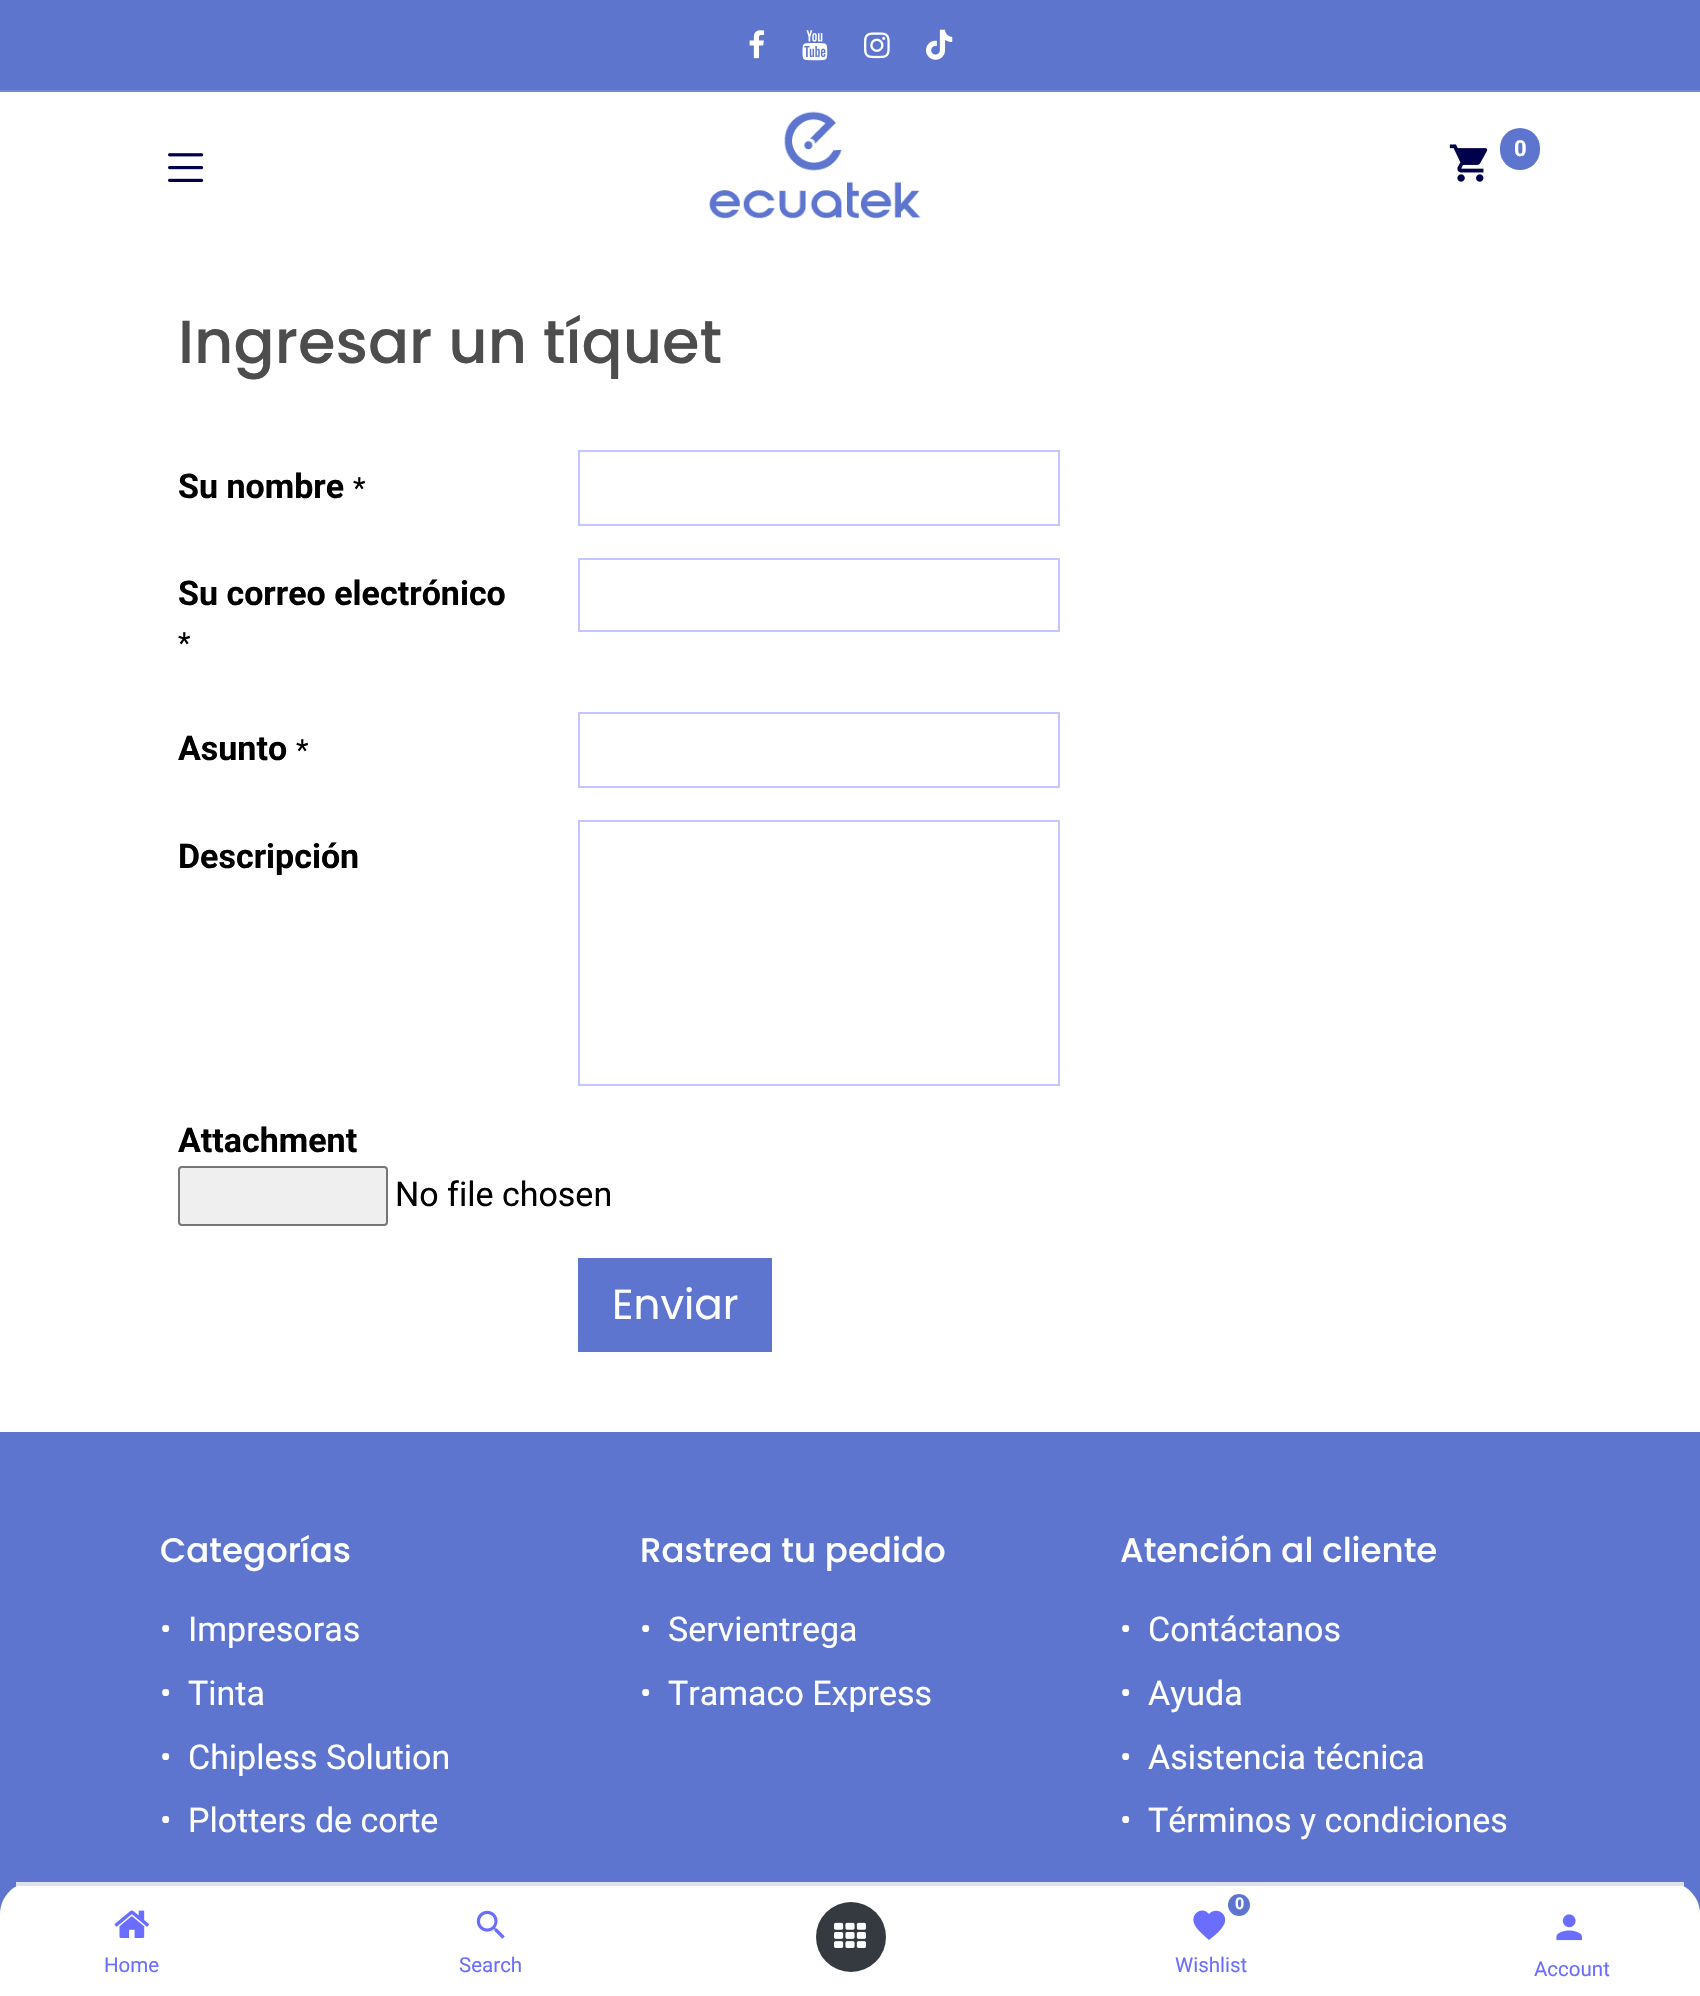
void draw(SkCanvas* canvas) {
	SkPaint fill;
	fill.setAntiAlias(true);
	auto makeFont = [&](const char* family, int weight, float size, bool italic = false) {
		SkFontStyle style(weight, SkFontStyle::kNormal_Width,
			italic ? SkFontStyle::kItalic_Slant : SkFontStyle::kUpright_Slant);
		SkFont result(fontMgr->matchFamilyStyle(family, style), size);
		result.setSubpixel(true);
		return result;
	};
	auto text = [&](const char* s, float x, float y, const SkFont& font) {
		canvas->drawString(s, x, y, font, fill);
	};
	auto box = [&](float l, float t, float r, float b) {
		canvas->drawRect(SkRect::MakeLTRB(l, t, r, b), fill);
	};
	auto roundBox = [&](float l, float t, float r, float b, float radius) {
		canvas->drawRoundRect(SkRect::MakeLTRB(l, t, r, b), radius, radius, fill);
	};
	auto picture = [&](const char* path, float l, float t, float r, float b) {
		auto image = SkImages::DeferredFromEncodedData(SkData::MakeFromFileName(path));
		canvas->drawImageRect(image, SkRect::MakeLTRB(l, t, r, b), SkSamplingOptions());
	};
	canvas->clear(0xFFFFFFFF);
	fill.setColor(0xFF5E75CE);
	box(0, 0, 1700, 90);
	fill.setColor(0xFF7186D4);
	box(0, 90, 1700, 92);
	picture("image0.png", 749, 30, 765, 59);
	picture("image1.png", 802, 30, 828, 61);
	picture("image2.png", 864, 32, 890, 59);
	picture("image3.png", 926, 29, 953, 60);
	picture("image4.png", 709, 111, 921, 219);
	picture("image5.png", 1449, 144, 1488, 182);
	fill.setColor(0xFF5D75CE);
	roundBox(1500, 128, 1540, 170, 20);
	picture("image6.png", 168, 153, 204, 182);
	fill.setStyle(SkPaint::kStroke_Style);
	fill.setStrokeWidth(2);
	fill.setColor(0xFFC5C6FF);
	canvas->drawRect(SkRect::MakeLTRB(579, 451, 1059, 525), fill);
	canvas->drawRect(SkRect::MakeLTRB(579, 559, 1059, 631), fill);
	canvas->drawRect(SkRect::MakeLTRB(579, 713, 1059, 787), fill);
	canvas->drawRect(SkRect::MakeLTRB(579, 821, 1059, 1085), fill);
	fill.setStyle(SkPaint::kFill_Style);
	fill.setColor(0xFFEFEFEF);
	canvas->drawRoundRect(SkRect::MakeLTRB(179, 1167, 387, 1225), 3, 3, fill);
	fill.setStyle(SkPaint::kStroke_Style);
	fill.setColor(0xFF767676);
	canvas->drawRoundRect(SkRect::MakeLTRB(179, 1167, 387, 1225), 3, 3, fill);
	fill.setStyle(SkPaint::kFill_Style);
	fill.setColor(0xFF5D75CE);
	box(578, 1258, 772, 1352);
	box(0, 1432, 1700, 1914);
	fill.setColor(0xFFFFFFFF);
	canvas->drawPath(SkPathBuilder().moveTo(32, 1882).lineTo(1668, 1882).cubicTo(1685.5f, 1882, 1700, 1896.5f, 1700, 1914).lineTo(1700, 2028).lineTo(0, 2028).lineTo(0, 1914).cubicTo(0, 1896.5f, 14.5f, 1882, 32, 1882).close().detach(), fill);
	fill.setColor(0xFFDEE2E6);
	box(16, 1882, 1684, 1886);
	picture("image7.png", 114, 1910, 150, 1938);
	picture("image8.png", 476, 1910, 505, 1939);
	fill.setColor(0xFF343A40);
	canvas->drawCircle(851, 1937, 35, fill);
	picture("image9.png", 834, 1922, 866, 1948);
	fill.setColor(0xFF5D75CE);
	canvas->drawCircle(1239, 1905, 11, fill);
	fill.setColor(0xFF6B6DFF);
	canvas->drawPath(SkPathBuilder().moveTo(1209, 1940).cubicTo(1204.5f, 1936, 1197, 1930, 1194.5f, 1924.5f).cubicTo(1189.5f, 1914, 1202, 1905.5f, 1209, 1914).cubicTo(1216, 1906, 1228.5f, 1913.5f, 1224.5f, 1923.5f).cubicTo(1221.5f, 1930.5f, 1214.5f, 1935.5f, 1209, 1940).close().detach(), fill);
	picture("image10.png", 1556, 1914, 1582, 1941);
	auto font1 = makeFont("Roboto", 700, 22);
	fill.setColor(0xFFFFFFFF);
	text("0", 1514, 156, font1);
	auto font2 = makeFont("Poppins", 500, 60.75f);
	fill.setColor(0xFF4D4D4D);
	text("Ingresar un tíquet", 178, 363, font2);
	auto font3 = makeFont("Roboto", 700, 34);
	fill.setColor(0xFF000000);
	text("Su nombre", 178, 498, font3);
	auto font4 = makeFont("Roboto", 400, 29);
	text("*", 353, 498, font4);
	text("Su correo electrónico", 178, 605, font3);
	text("*", 178, 653, font4);
	text("Asunto", 178, 760, font3);
	text("*", 296, 760, font4);
	text("Descripción", 178, 868, font3);
	text("Attachment", 178, 1152, font3);
	auto font5 = makeFont("Roboto", 400, 34);
	text("No file chosen", 395, 1206, font5);
	auto font6 = makeFont("Poppins", 400, 42);
	fill.setColor(0xFFFFFFFF);
	text("Enviar", 612, 1319, font6);
	auto font7 = makeFont("Poppins", 500, 34);
	text("Categorías", 160, 1562, font7);
	text("•", 160, 1641, font5);
	text("Impresoras", 188, 1641, font5);
	text("•", 160, 1705, font5);
	text("Tinta", 188, 1705, font5);
	text("•", 160, 1769, font5);
	text("Chipless Solution", 188, 1769, font5);
	text("•", 160, 1832, font5);
	text("Plotters de corte", 188, 1832, font5);
	text("Rastrea tu pedido", 640, 1562, font7);
	text("•", 640, 1641, font5);
	text("Servientrega", 668, 1641, font5);
	text("•", 640, 1705, font5);
	text("Tramaco Express", 668, 1705, font5);
	text("Atención al cliente", 1120, 1562, font7);
	text("•", 1120, 1641, font5);
	text("Contáctanos", 1148, 1641, font5);
	text("•", 1120, 1705, font5);
	text("Ayuda", 1148, 1705, font5);
	text("•", 1120, 1769, font5);
	text("Asistencia técnica", 1148, 1769, font5);
	text("•", 1120, 1832, font5);
	text("Términos y condiciones", 1148, 1832, font5);
	auto font8 = makeFont("Roboto", 400, 20.5f);
	fill.setColor(0xFF6B6DFF);
	text("Home", 104, 1972, font8);
	text("Search", 459, 1972, font8);
	auto font9 = makeFont("Roboto", 700, 16);
	fill.setColor(0xFFFFFFFF);
	text("0", 1235, 1909, font9);
	fill.setColor(0xFF6B6DFF);
	text("Wishlist", 1175, 1972, font8);
	text("Account", 1534, 1976, font8);
}
